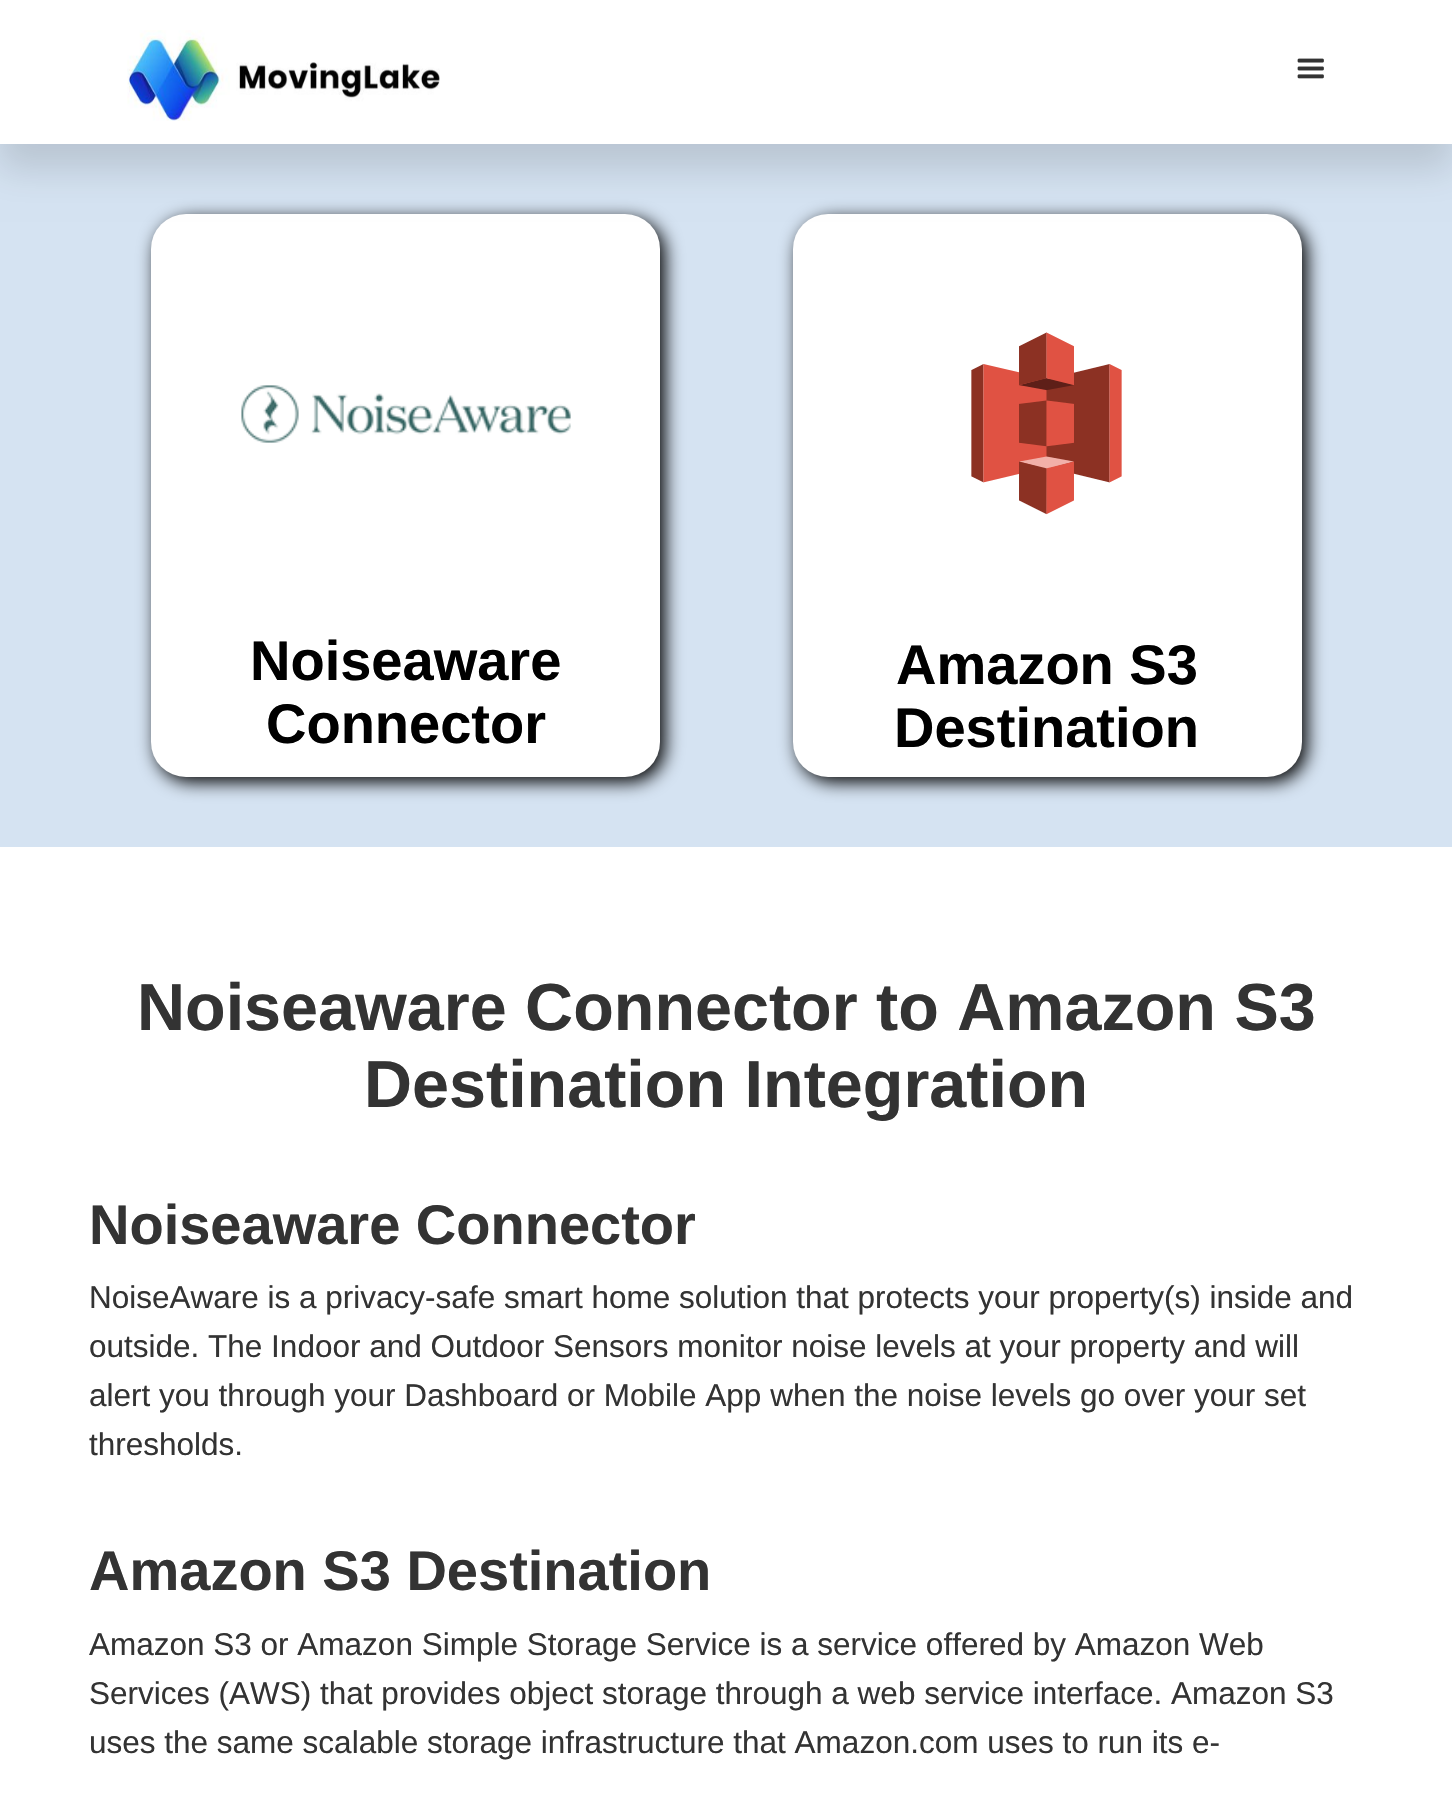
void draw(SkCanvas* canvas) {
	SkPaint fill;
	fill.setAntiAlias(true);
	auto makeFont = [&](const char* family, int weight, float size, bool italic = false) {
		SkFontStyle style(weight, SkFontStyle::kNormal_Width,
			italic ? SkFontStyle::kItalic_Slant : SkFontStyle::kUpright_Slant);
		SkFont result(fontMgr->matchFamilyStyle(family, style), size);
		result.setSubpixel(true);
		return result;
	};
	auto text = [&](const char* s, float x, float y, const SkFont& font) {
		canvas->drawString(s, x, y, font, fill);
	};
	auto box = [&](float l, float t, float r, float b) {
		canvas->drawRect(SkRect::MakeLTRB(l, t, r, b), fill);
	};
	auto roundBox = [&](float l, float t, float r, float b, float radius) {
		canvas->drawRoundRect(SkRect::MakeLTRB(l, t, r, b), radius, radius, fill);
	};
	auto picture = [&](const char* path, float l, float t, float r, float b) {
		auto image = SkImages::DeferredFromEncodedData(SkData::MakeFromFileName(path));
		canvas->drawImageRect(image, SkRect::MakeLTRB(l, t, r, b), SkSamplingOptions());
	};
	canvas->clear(0xFFFFFFFF);
	fill.setColor(0xFFD5E3F2);
	box(0, 144, 1452, 847);
	fill.setColor(0xFF000000);
	fill.setMaskFilter(SkMaskFilter::MakeBlur(kNormal_SkBlurStyle, 9));
	canvas->drawRoundRect(SkRect::MakeLTRB(156, 219, 665, 782), 35, 35, fill);
	fill.setMaskFilter(nullptr);
	fill.setColor(0xFFFFFFFF);
	roundBox(151, 214, 660, 777, 35);
	fill.setColor(0xFF000000);
	fill.setMaskFilter(SkMaskFilter::MakeBlur(kNormal_SkBlurStyle, 9));
	canvas->drawRoundRect(SkRect::MakeLTRB(798, 219, 1307, 782), 35, 35, fill);
	fill.setMaskFilter(nullptr);
	fill.setColor(0xFFFFFFFF);
	roundBox(793, 214, 1302, 777, 35);
	fill.setColor(0x21000000);
	fill.setMaskFilter(SkMaskFilter::MakeBlur(kNormal_SkBlurStyle, 17.5f));
	canvas->drawRect(SkRect::MakeLTRB(-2, 23, 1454, 170), fill);
	fill.setMaskFilter(nullptr);
	fill.setColor(0xFFFFFFFF);
	box(0, 0, 1452, 144);
	picture("image0.png", 127, 30, 440, 121);
	picture("image1.png", 1297, 58, 1324, 79);
	picture("image2.png", 241, 385, 571, 443);
	picture("image3.png", 971, 332, 1122, 515);
	auto font1 = makeFont("Liberation Sans", 700, 56);
	fill.setColor(0xFF000000);
	text("Noiseaware", 250, 680, font1);
	text("Connector", 266, 743, font1);
	text("Amazon S3", 896, 684, font1);
	text("Destination", 894, 747, font1);
	auto font2 = makeFont("Liberation Sans", 700, 66.5f);
	fill.setColor(0xFF333333);
	text("Noiseaware Connector to Amazon S3", 137, 1030, font2);
	text("Destination Integration", 364, 1107, font2);
	text("Noiseaware Connector", 89, 1244, font1);
	auto font3 = makeFont("Liberation Sans", 400, 31.5f);
	text("NoiseAware is a privacy-safe smart home solution that protects your property(s) inside and", 89, 1308, font3);
	text("outside. The Indoor and Outdoor Sensors monitor noise levels at your property and will", 89, 1357, font3);
	text("alert you through your Dashboard or Mobile App when the noise levels go over your set", 89, 1406, font3);
	text("thresholds.", 89, 1455, font3);
	text("Amazon S3 Destination", 89, 1590, font1);
	text("Amazon S3 or Amazon Simple Storage Service is a service offered by Amazon Web", 89, 1655, font3);
	text("Services (AWS) that provides object storage through a web service interface. Amazon S3", 89, 1704, font3);
	text("uses the same scalable storage infrastructure that Amazon.com uses to run its e-", 89, 1753, font3);
}
